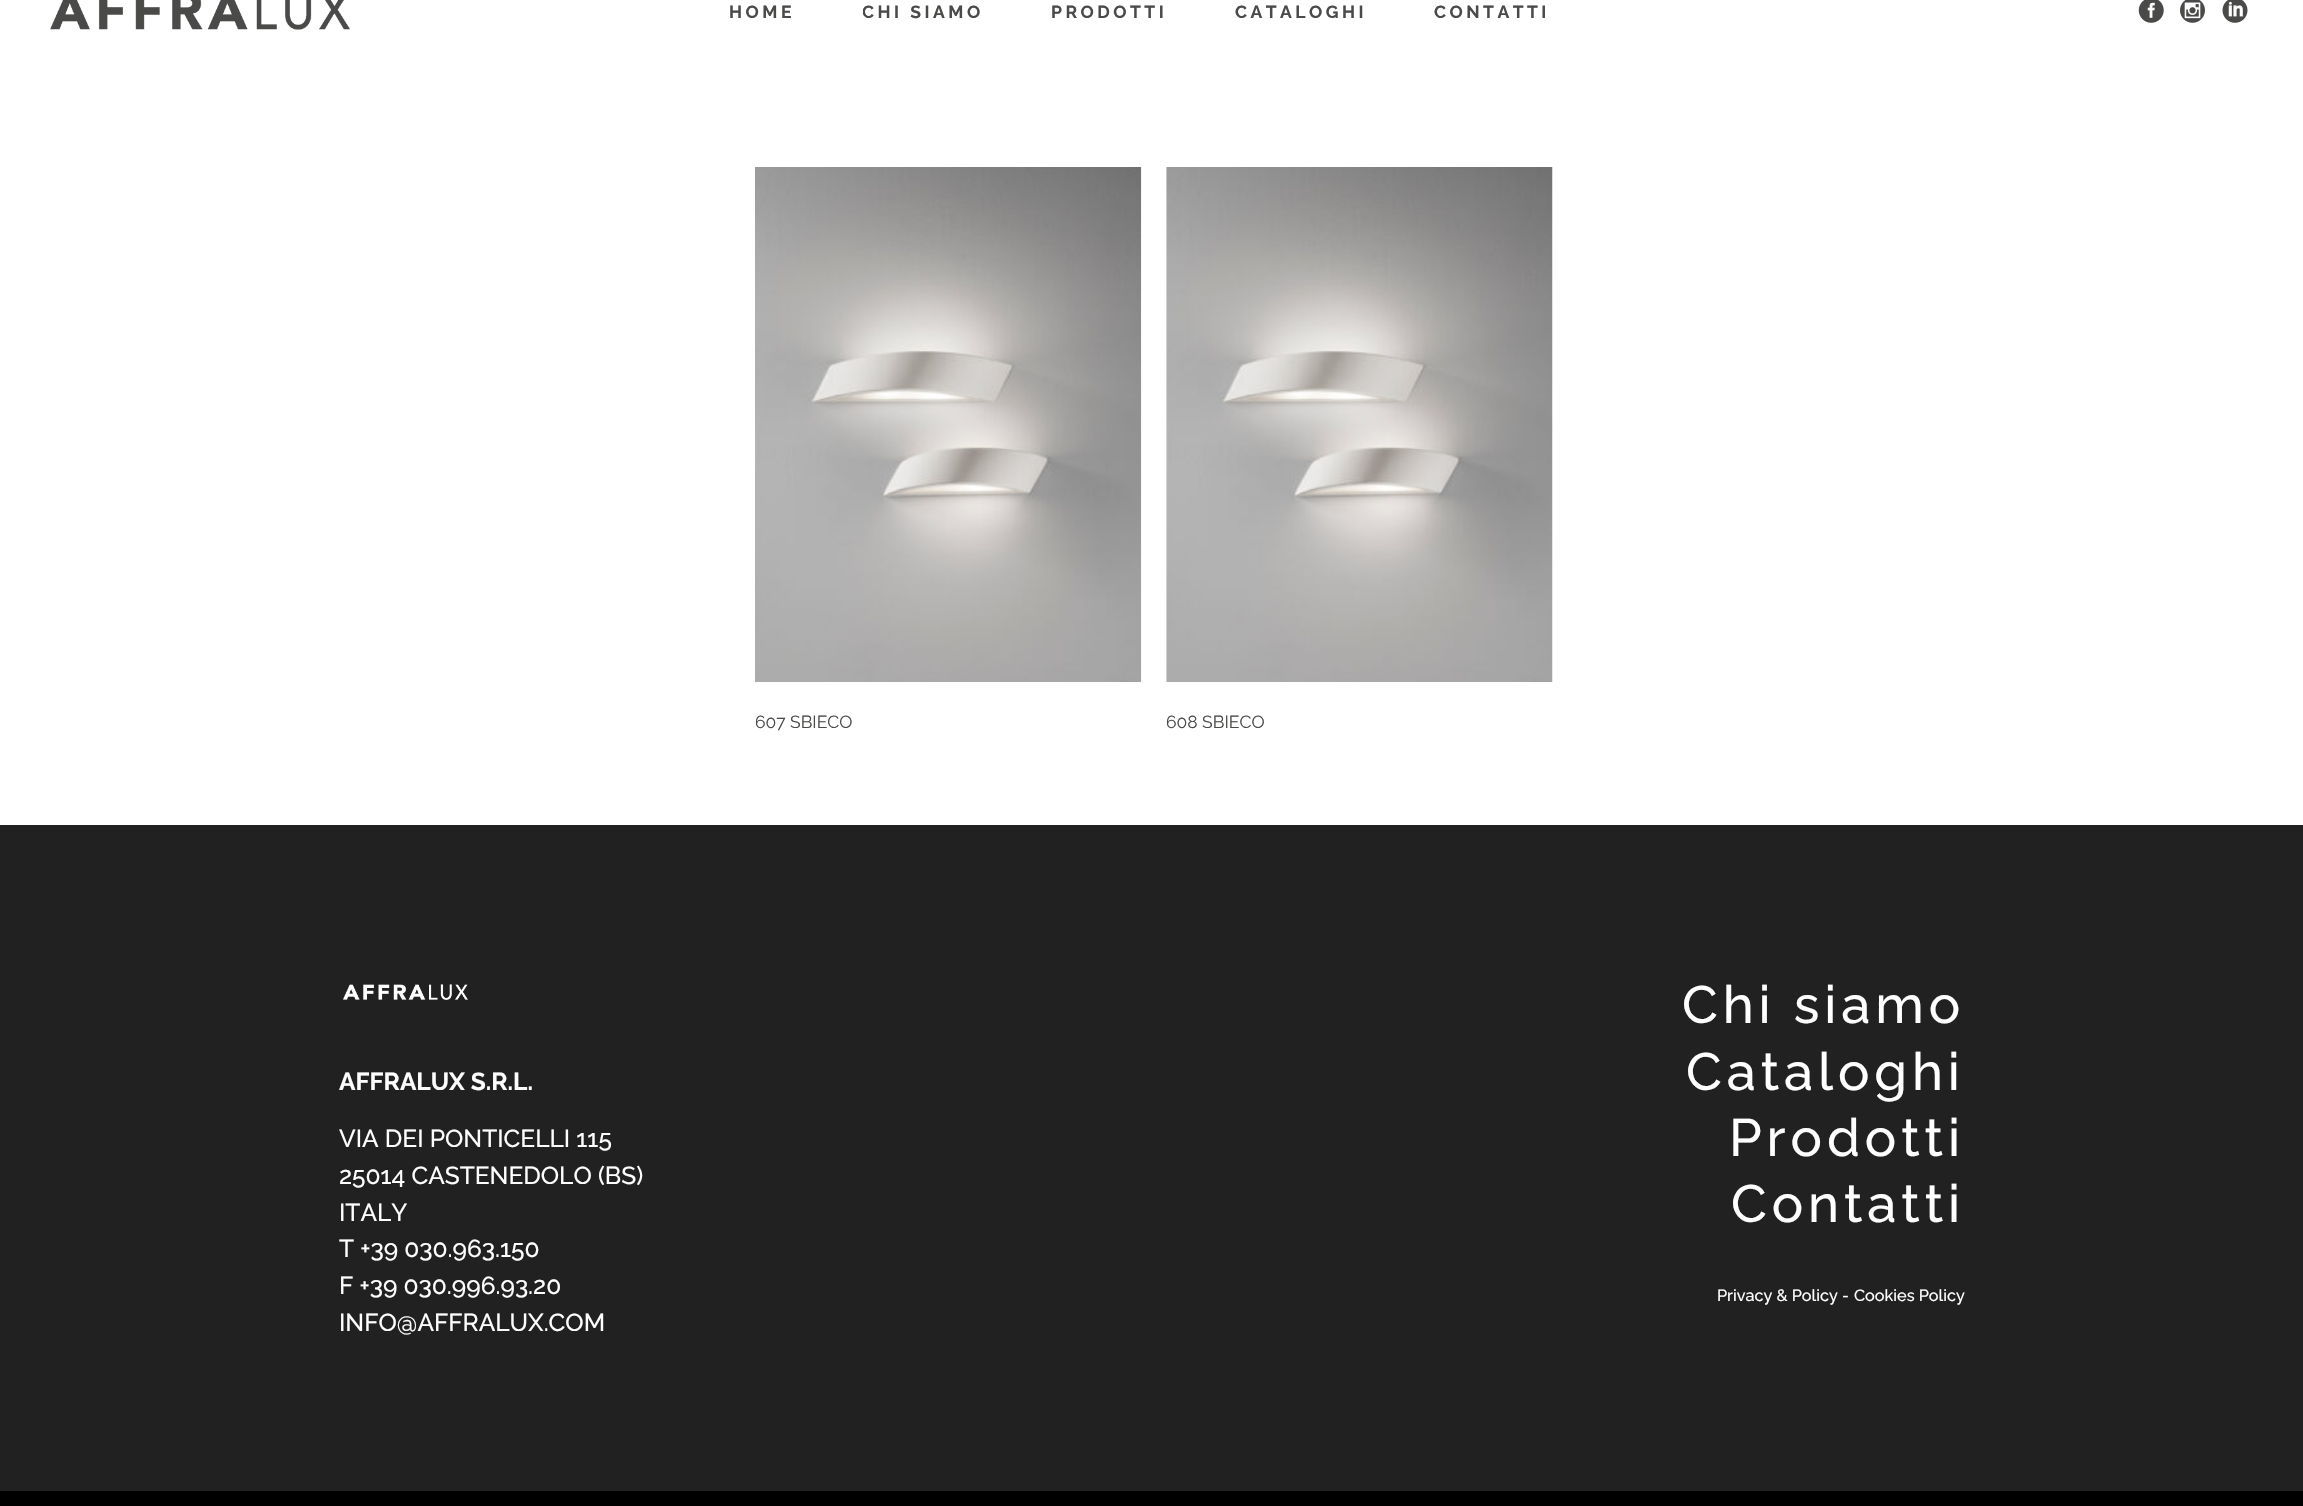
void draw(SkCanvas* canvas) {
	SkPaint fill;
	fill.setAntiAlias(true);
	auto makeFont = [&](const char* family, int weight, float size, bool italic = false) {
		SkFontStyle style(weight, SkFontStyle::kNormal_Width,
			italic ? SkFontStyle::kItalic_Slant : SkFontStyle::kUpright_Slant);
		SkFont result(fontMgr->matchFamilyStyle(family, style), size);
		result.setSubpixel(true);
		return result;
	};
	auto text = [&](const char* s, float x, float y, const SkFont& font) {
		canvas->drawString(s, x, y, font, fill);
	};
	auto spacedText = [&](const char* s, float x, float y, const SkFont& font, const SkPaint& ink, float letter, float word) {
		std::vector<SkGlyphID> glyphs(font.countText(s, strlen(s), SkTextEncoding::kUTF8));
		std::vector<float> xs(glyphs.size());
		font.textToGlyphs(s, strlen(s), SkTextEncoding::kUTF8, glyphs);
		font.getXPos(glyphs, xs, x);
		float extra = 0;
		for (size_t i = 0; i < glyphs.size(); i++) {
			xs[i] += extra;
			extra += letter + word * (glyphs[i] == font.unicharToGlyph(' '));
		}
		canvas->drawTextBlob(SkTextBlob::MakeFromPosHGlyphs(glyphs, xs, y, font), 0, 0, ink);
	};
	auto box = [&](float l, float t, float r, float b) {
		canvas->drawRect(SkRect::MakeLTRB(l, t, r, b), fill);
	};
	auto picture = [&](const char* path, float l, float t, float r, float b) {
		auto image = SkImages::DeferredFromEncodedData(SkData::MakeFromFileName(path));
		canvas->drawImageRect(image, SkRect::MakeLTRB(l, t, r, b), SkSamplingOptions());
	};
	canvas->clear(0xFFFFFFFF);
	picture("image0.png", 50, 0, 350, 30);
	picture("image1.png", 2138, 0, 2164, 23);
	picture("image2.png", 2180, 0, 2205, 23);
	picture("image3.png", 2222, 0, 2248, 23);
	picture("image4.png", 755, 167, 1142, 682);
	picture("image5.png", 1166, 167, 1553, 682);
	fill.setColor(0xFF212121);
	box(0, 825, 2303, 1491);
	picture("image6.png", 343, 984, 468, 1000);
	fill.setColor(0xFF000000);
	box(0, 1491, 2303, 1506);
	auto font1 = makeFont("Raleway", 700, 17.5f);
	fill.setColor(0xFF4A4A49);
	spacedText("HOME", 729, 18, font1, fill, 3.5f, 0);
	canvas->save();
	canvas->clipRect(SkRect::MakeLTRB(863, 0, 1009, 26));
	spacedText("CHI SIAMO", 862, 18, font1, fill, 3.5f, 0);
	canvas->restore();
	spacedText("PRODOTTI", 1051, 18, font1, fill, 3.5f, 0);
	spacedText("CATALOGHI", 1235, 18, font1, fill, 3.5f, 0);
	spacedText("CONTATTI", 1434, 18, font1, fill, 3.5f, 0);
	auto font2 = makeFont("Raleway", 400, 17.5f);
	text("607 SBIECO", 755, 728, font2);
	text("608 SBIECO", 1166, 728, font2);
	auto font3 = makeFont("Raleway", 700, 24.5f);
	fill.setColor(0xFFFFFFFF);
	text("AFFRALUX S.R.L.", 339, 1090, font3);
	auto font4 = makeFont("Raleway", 500, 24.5f);
	text("VIA DEI PONTICELLI 115", 339, 1147, font4);
	text("25014 CASTENEDOLO (BS)", 339, 1184, font4);
	text("ITALY", 339, 1221, font4);
	text("T +39 030.963.150", 339, 1257, font4);
	text("F +39 030.996.93.20", 339, 1294, font4);
	text("INFO@AFFRALUX.COM", 339, 1331, font4);
	auto font5 = makeFont("Raleway", 500, 52.5f);
	spacedText("Chi siamo", 1682, 1023, font5, fill, 4.9f, 0);
	spacedText("Cataloghi", 1686, 1090, font5, fill, 4.9f, 0);
	spacedText("Prodotti", 1729, 1156, font5, fill, 4.9f, 0);
	spacedText("Contatti", 1731, 1222, font5, fill, 4.9f, 0);
	auto font6 = makeFont("Raleway", 500, 16.25f);
	text("Privacy & Policy", 1717, 1301, font6);
	spacedText("-", 1842, 1301, font6, fill, 4.9f, 0);
	text("Cookies Policy", 1854, 1301, font6);
}
